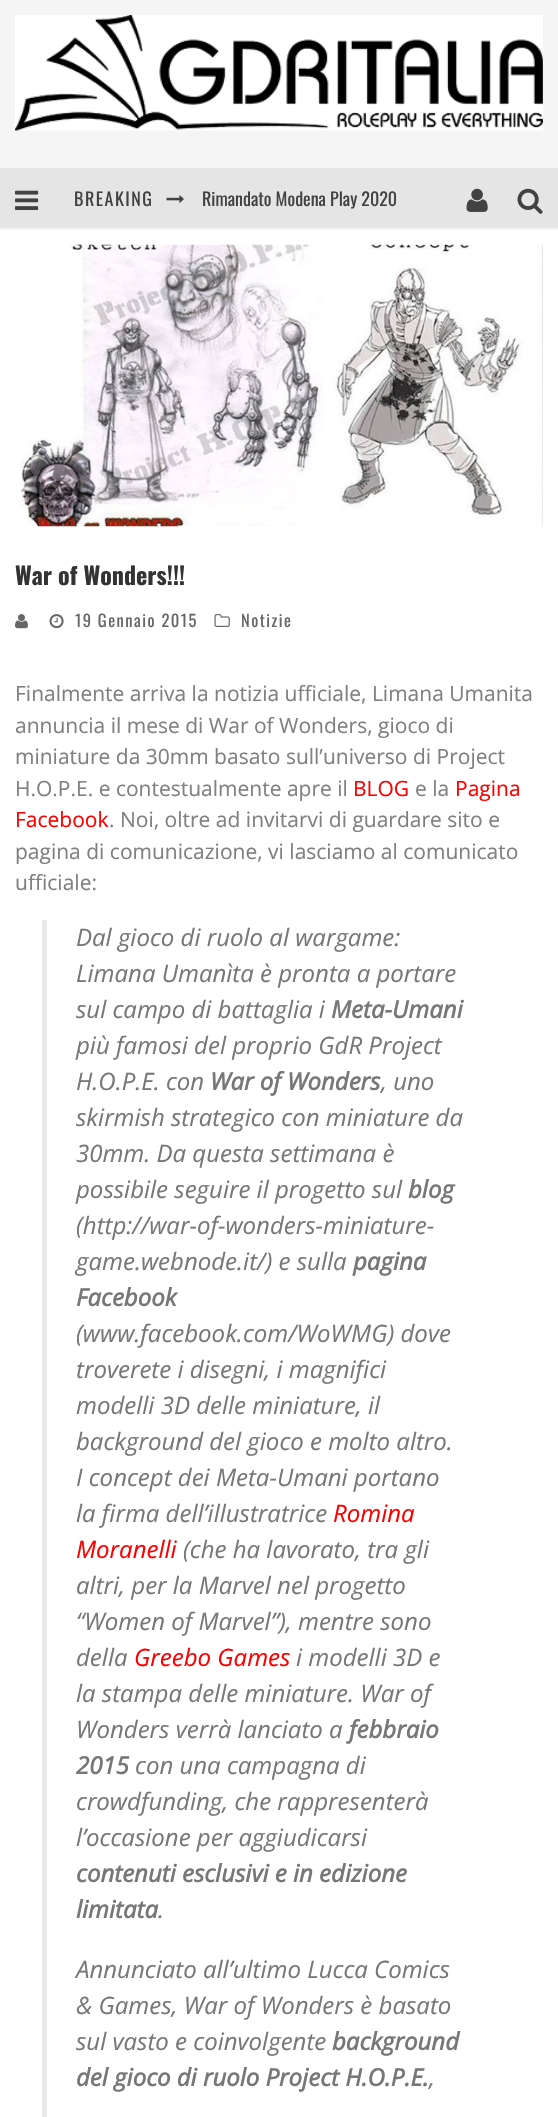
void draw(SkCanvas* canvas) {
	SkPaint fill;
	fill.setAntiAlias(true);
	auto makeFont = [&](const char* family, int weight, float size, bool italic = false) {
		SkFontStyle style(weight, SkFontStyle::kNormal_Width,
			italic ? SkFontStyle::kItalic_Slant : SkFontStyle::kUpright_Slant);
		SkFont result(fontMgr->matchFamilyStyle(family, style), size);
		result.setSubpixel(true);
		return result;
	};
	auto text = [&](const char* s, float x, float y, const SkFont& font) {
		canvas->drawString(s, x, y, font, fill);
	};
	auto spacedText = [&](const char* s, float x, float y, const SkFont& font, const SkPaint& ink, float letter, float word) {
		std::vector<SkGlyphID> glyphs(font.countText(s, strlen(s), SkTextEncoding::kUTF8));
		std::vector<float> xs(glyphs.size());
		font.textToGlyphs(s, strlen(s), SkTextEncoding::kUTF8, glyphs);
		font.getXPos(glyphs, xs, x);
		float extra = 0;
		for (size_t i = 0; i < glyphs.size(); i++) {
			xs[i] += extra;
			extra += letter + word * (glyphs[i] == font.unicharToGlyph(' '));
		}
		canvas->drawTextBlob(SkTextBlob::MakeFromPosHGlyphs(glyphs, xs, y, font), 0, 0, ink);
	};
	auto box = [&](float l, float t, float r, float b) {
		canvas->drawRect(SkRect::MakeLTRB(l, t, r, b), fill);
	};
	auto picture = [&](const char* path, float l, float t, float r, float b) {
		auto image = SkImages::DeferredFromEncodedData(SkData::MakeFromFileName(path));
		canvas->drawImageRect(image, SkRect::MakeLTRB(l, t, r, b), SkSamplingOptions());
	};
	canvas->clear(0xFFFFFFFF);
	fill.setColor(0xFFF5F5F5);
	box(0, 0, 558, 230);
	picture("image0.png", 15, 15, 543, 131);
	fill.setColor(0xFFE5E5E5);
	box(0, 168, 558, 228);
	picture("image1.png", 15, 190, 39, 210);
	picture("image2.png", 166, 195, 184, 203);
	picture("image3.png", 466, 188, 488, 212);
	picture("image4.png", 517, 188, 543, 214);
	picture("image5.png", 20, 244, 543, 527);
	picture("image6.png", 15, 614, 28, 629);
	picture("image7.png", 49, 614, 64, 629);
	picture("image8.png", 214, 614, 230, 627);
	fill.setColor(0xFFE9E9E9);
	box(42, 920, 47, 2117);
	auto font1 = makeFont("Oswald", 400, 18);
	fill.setColor(0xFF424242);
	spacedText("BREAKING", 74, 206, font1, fill, 1.5f, 0);
	text("Rimandato Modena Play 2020", 202, 206, font1);
	auto font2 = makeFont("Oswald", 700, 24);
	fill.setColor(0xFF333333);
	text("War of Wonders!!!", 15, 585, font2);
	auto font3 = makeFont("Oswald", 400, 16.5f);
	fill.setColor(0xFF676767);
	spacedText("19 Gennaio 2015", 75, 627, font3, fill, 1.5f, 0);
	spacedText("Notizie", 241, 627, font3, fill, 1.5f, 0);
	auto font4 = makeFont("Open Sans", 400, 21);
	fill.setColor(0xFF808080);
	text("Finalmente arriva la notizia ufficiale, Limana Umanita", 15, 701, font4);
	text("annuncia il mese di War of Wonders, gioco di", 15, 733, font4);
	text("miniature da 30mm basato sull’universo di Project", 15, 764, font4);
	text("H.O.P.E. e contestualmente apre il", 15, 796, font4);
	fill.setColor(0xFFFF0000);
	text("BLOG", 353, 796, font4);
	fill.setColor(0xFF808080);
	text("e la", 415, 796, font4);
	fill.setColor(0xFFFF0000);
	text("Pagina", 455, 796, font4);
	text("Facebook", 15, 827, font4);
	fill.setColor(0xFF808080);
	text(". Noi, oltre ad invitarvi di guardare sito e", 109, 827, font4);
	text("pagina di comunicazione, vi lasciamo al comunicato", 15, 859, font4);
	text("ufficiale:", 15, 890, font4);
	auto font5 = makeFont("Open Sans", 400, 24, true);
	fill.setColor(0xFF777777);
	text("Dal gioco di ruolo al wargame:", 76, 946, font5);
	text("Limana Umanìta è pronta a portare", 76, 982, font5);
	text("sul campo di battaglia i", 76, 1018, font5);
	auto font6 = makeFont("Open Sans", 700, 24, true);
	text("Meta-Umani", 331, 1018, font6);
	text("più famosi del proprio GdR Project", 76, 1054, font5);
	text("H.O.P.E. con", 76, 1090, font5);
	text("War of Wonders", 210, 1090, font6);
	text(", uno", 381, 1090, font5);
	text("skirmish strategico con miniature da", 76, 1126, font5);
	text("30mm. Da questa settimana è", 76, 1162, font5);
	text("possibile seguire il progetto sul", 76, 1198, font5);
	text("blog", 408, 1198, font6);
	text("(http://war-of-wonders-miniature-", 76, 1234, font5);
	text("game.webnode.it/) e sulla", 76, 1270, font5);
	text("pagina", 353, 1270, font6);
	text("Facebook", 76, 1306, font6);
	text("(www.facebook.com/WoWMG) dove", 76, 1342, font5);
	text("troverete i disegni, i magnifici", 76, 1378, font5);
	text("modelli 3D delle miniature, il", 76, 1414, font5);
	text("background del gioco e molto altro.", 76, 1450, font5);
	text("I concept dei Meta-Umani portano", 76, 1486, font5);
	text("la firma dell’illustratrice", 76, 1522, font5);
	fill.setColor(0xFFFF0000);
	text("Romina", 333, 1522, font5);
	text("Moranelli", 76, 1558, font5);
	fill.setColor(0xFF777777);
	text("(che ha lavorato, tra gli", 183, 1558, font5);
	text("altri, per la Marvel nel progetto", 76, 1594, font5);
	text("“Women of Marvel”), mentre sono", 76, 1630, font5);
	text("della", 76, 1666, font5);
	fill.setColor(0xFFFF0000);
	text("Greebo Games", 134, 1666, font5);
	fill.setColor(0xFF777777);
	text("i modelli 3D e", 296, 1666, font5);
	text("la stampa delle miniature. War of", 76, 1702, font5);
	text("Wonders verrà lanciato a", 76, 1738, font5);
	text("febbraio", 349, 1738, font6);
	text("2015", 76, 1774, font6);
	text("con una campagna di", 135, 1774, font5);
	text("crowdfunding, che rappresenterà", 76, 1810, font5);
	text("l’occasione per aggiudicarsi", 76, 1846, font5);
	text("contenuti esclusivi e in edizione", 76, 1882, font6);
	text("limitata", 76, 1918, font6);
	text(".", 158, 1918, font5);
	text("Annunciato all’ultimo Lucca Comics", 76, 1978, font5);
	text("& Games, War of Wonders è basato", 76, 2014, font5);
	text("sul vasto e coinvolgente", 76, 2050, font5);
	text("background", 332, 2050, font6);
	text("del gioco di ruolo Project H.O.P.E.", 76, 2086, font6);
	text(",", 429, 2086, font5);
}
